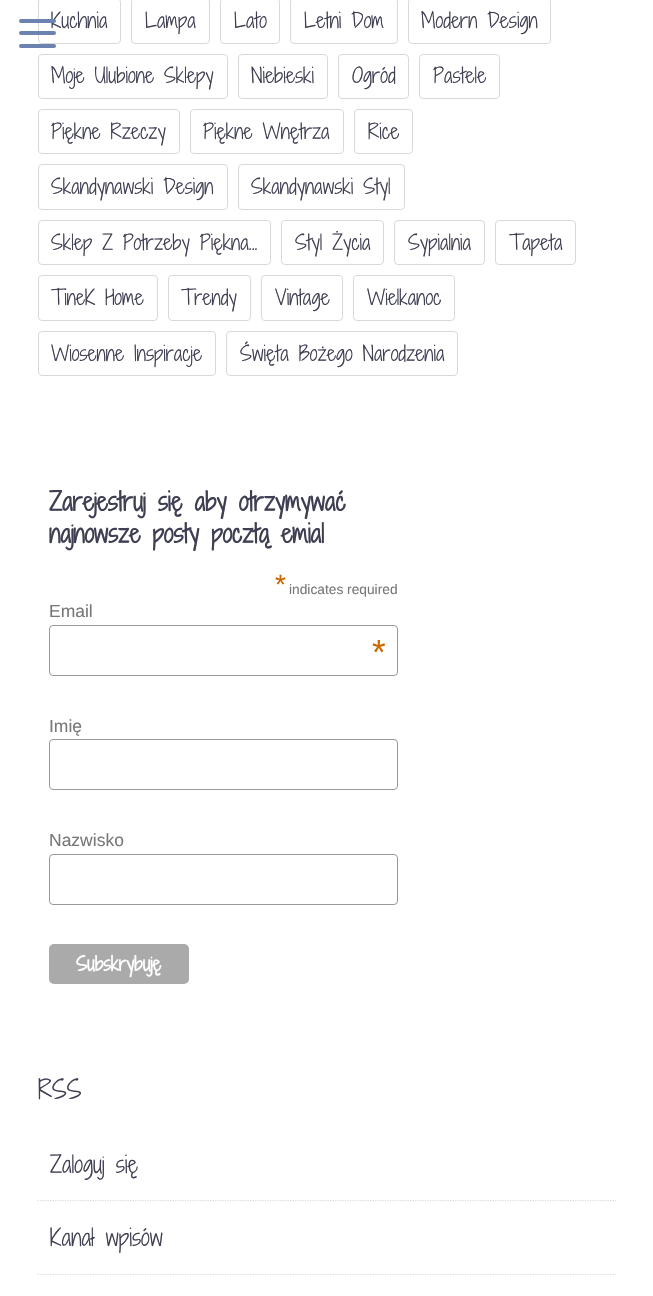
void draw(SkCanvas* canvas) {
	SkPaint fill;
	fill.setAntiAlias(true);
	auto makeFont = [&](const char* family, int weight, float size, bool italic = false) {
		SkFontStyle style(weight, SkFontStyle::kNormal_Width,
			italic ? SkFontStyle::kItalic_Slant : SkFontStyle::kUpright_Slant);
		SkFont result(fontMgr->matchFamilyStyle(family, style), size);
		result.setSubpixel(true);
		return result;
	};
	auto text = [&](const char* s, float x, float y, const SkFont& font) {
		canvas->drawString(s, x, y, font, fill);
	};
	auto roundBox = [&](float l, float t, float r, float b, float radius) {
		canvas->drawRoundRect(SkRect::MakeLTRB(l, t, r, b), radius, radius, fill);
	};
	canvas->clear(0xFFFFFFFF);
	fill.setStyle(SkPaint::kStroke_Style);
	fill.setStrokeWidth(1);
	fill.setColor(0xFFD9D9DD);
	canvas->drawRoundRect(SkRect::MakeLTRB(38.5f, -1.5f, 120.5f, 43.5f), 3.5f, 3.5f, fill);
	fill.setStyle(SkPaint::kFill_Style);
	fill.setColor(0xFF6C83B1);
	roundBox(19, 31, 56, 35, 2);
	roundBox(19, 44, 56, 48, 2);
	fill.setStyle(SkPaint::kStroke_Style);
	fill.setColor(0xFFD9D9DD);
	canvas->drawRoundRect(SkRect::MakeLTRB(131.5f, -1.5f, 209.5f, 43.5f), 3.5f, 3.5f, fill);
	canvas->drawRoundRect(SkRect::MakeLTRB(220.5f, -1.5f, 279.5f, 43.5f), 3.5f, 3.5f, fill);
	canvas->drawRoundRect(SkRect::MakeLTRB(290.5f, -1.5f, 397.5f, 43.5f), 3.5f, 3.5f, fill);
	canvas->drawRoundRect(SkRect::MakeLTRB(408.5f, -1.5f, 550.5f, 43.5f), 3.5f, 3.5f, fill);
	canvas->drawRoundRect(SkRect::MakeLTRB(38.5f, 54.5f, 227.5f, 98.5f), 3.5f, 3.5f, fill);
	canvas->drawRoundRect(SkRect::MakeLTRB(238.5f, 54.5f, 327.5f, 98.5f), 3.5f, 3.5f, fill);
	canvas->drawRoundRect(SkRect::MakeLTRB(338.5f, 54.5f, 408.5f, 98.5f), 3.5f, 3.5f, fill);
	canvas->drawRoundRect(SkRect::MakeLTRB(419.5f, 54.5f, 499.5f, 98.5f), 3.5f, 3.5f, fill);
	canvas->drawRoundRect(SkRect::MakeLTRB(38.5f, 109.5f, 179.5f, 153.5f), 3.5f, 3.5f, fill);
	canvas->drawRoundRect(SkRect::MakeLTRB(190.5f, 109.5f, 343.5f, 153.5f), 3.5f, 3.5f, fill);
	canvas->drawRoundRect(SkRect::MakeLTRB(354.5f, 109.5f, 412.5f, 153.5f), 3.5f, 3.5f, fill);
	canvas->drawRoundRect(SkRect::MakeLTRB(38.5f, 164.5f, 227.5f, 209.5f), 3.5f, 3.5f, fill);
	canvas->drawRoundRect(SkRect::MakeLTRB(238.5f, 164.5f, 404.5f, 209.5f), 3.5f, 3.5f, fill);
	canvas->drawRoundRect(SkRect::MakeLTRB(38.5f, 220.5f, 270.5f, 264.5f), 3.5f, 3.5f, fill);
	canvas->drawRoundRect(SkRect::MakeLTRB(281.5f, 220.5f, 383.5f, 264.5f), 3.5f, 3.5f, fill);
	canvas->drawRoundRect(SkRect::MakeLTRB(394.5f, 220.5f, 484.5f, 264.5f), 3.5f, 3.5f, fill);
	canvas->drawRoundRect(SkRect::MakeLTRB(495.5f, 220.5f, 575.5f, 264.5f), 3.5f, 3.5f, fill);
	canvas->drawRoundRect(SkRect::MakeLTRB(38.5f, 275.5f, 157.5f, 320.5f), 3.5f, 3.5f, fill);
	canvas->drawRoundRect(SkRect::MakeLTRB(168.5f, 275.5f, 250.5f, 320.5f), 3.5f, 3.5f, fill);
	canvas->drawRoundRect(SkRect::MakeLTRB(261.5f, 275.5f, 342.5f, 320.5f), 3.5f, 3.5f, fill);
	canvas->drawRoundRect(SkRect::MakeLTRB(353.5f, 275.5f, 454.5f, 320.5f), 3.5f, 3.5f, fill);
	canvas->drawRoundRect(SkRect::MakeLTRB(38.5f, 331.5f, 215.5f, 375.5f), 3.5f, 3.5f, fill);
	canvas->drawRoundRect(SkRect::MakeLTRB(226.5f, 331.5f, 457.5f, 375.5f), 3.5f, 3.5f, fill);
	fill.setColor(0xFF999999);
	canvas->drawRoundRect(SkRect::MakeLTRB(49.5f, 625.5f, 397.5f, 675.5f), 3.5f, 3.5f, fill);
	canvas->drawRoundRect(SkRect::MakeLTRB(49.5f, 739.5f, 397.5f, 789.5f), 3.5f, 3.5f, fill);
	canvas->drawRoundRect(SkRect::MakeLTRB(49.5f, 854.5f, 397.5f, 904.5f), 3.5f, 3.5f, fill);
	fill.setStyle(SkPaint::kFill_Style);
	fill.setColor(0xFFAAAAAA);
	roundBox(49, 944, 189, 984, 5);
	fill.setStyle(SkPaint::kStroke_Style);
	fill.setStrokeWidth(1.2f);
	fill.setColor(0xFFD9D9DD);
	fill.setPathEffect(SkDashPathEffect::Make({{1.25f, 1.25f}}, 0));
	canvas->drawPath(SkPathBuilder().moveTo(37.5f, 1200.5f).lineTo(616, 1200.5f).detach(), fill);
	fill.setPathEffect(nullptr);
	fill.setPathEffect(SkDashPathEffect::Make({{1.25f, 1.25f}}, 0));
	canvas->drawPath(SkPathBuilder().moveTo(37.5f, 1274.5f).lineTo(616, 1274.5f).detach(), fill);
	fill.setPathEffect(nullptr);
	auto font1 = makeFont("Shadows Into Light Two", 300, 20);
	fill.setStyle(SkPaint::kFill_Style);
	fill.setColor(0xFF3F3F53);
	text("Kuchnia", 51, 28, font1);
	fill.setColor(0xFF6C83B1);
	roundBox(19, 19, 56, 23, 2);
	fill.setColor(0xFF3F3F53);
	text("Lampa", 145, 28, font1);
	text("Lato", 234, 28, font1);
	text("Letni Dom", 304, 28, font1);
	text("Modern Design", 421, 28, font1);
	text("Moje Ulubione Sklepy", 51, 83, font1);
	text("Niebieski", 251, 83, font1);
	text("Ogród", 352, 83, font1);
	text("Pastele", 433, 83, font1);
	text("Piękne Rzeczy", 51, 139, font1);
	text("Piękne Wnętrza", 203, 139, font1);
	text("Rice", 368, 139, font1);
	text("Skandynawski Design", 51, 194, font1);
	text("Skandynawski Styl", 251, 194, font1);
	text("Sklep Z Potrzeby Piękna...", 51, 250, font1);
	text("Styl Życia", 295, 250, font1);
	text("Sypialnia", 408, 250, font1);
	text("Tapeta", 509, 250, font1);
	text("TineK Home", 51, 305, font1);
	text("Trendy", 181, 305, font1);
	text("Vintage", 275, 305, font1);
	text("Wielkanoc", 367, 305, font1);
	text("Wiosenne Inspiracje", 51, 361, font1);
	text("Święta Bożego Narodzenia", 240, 361, font1);
	auto font2 = makeFont("Shadows Into Light Two", 700, 24.5f);
	text("Zarejestruj się aby otrzymywać", 49, 511, font2);
	text("najnowsze posty pocztą emial", 49, 543, font2);
	auto font3 = makeFont("Liberation Sans", 400, 28);
	fill.setColor(0xFFCC6600);
	text("*", 275, 594, font3);
	auto font4 = makeFont("Liberation Sans", 400, 13.75f);
	fill.setColor(0xFF777777);
	text("indicates required", 289, 594, font4);
	auto font5 = makeFont("Liberation Sans", 400, 17.5f);
	text("Email", 49, 617, font5);
	auto font6 = makeFont("Liberation Sans", 400, 35);
	fill.setColor(0xFFCC6600);
	text("*", 372, 664, font6);
	fill.setColor(0xFF777777);
	text("Imię", 49, 732, font5);
	text("Nazwisko", 49, 846, font5);
	auto font7 = makeFont("Shadows Into Light Two", 700, 18.75f);
	fill.setColor(0xFFFFFFFF);
	text("Subskrybuję", 76, 971, font7);
	auto font8 = makeFont("Shadows Into Light Two", 300, 25);
	fill.setColor(0xFF3F3F53);
	text("RSS", 38, 1099, font8);
	auto font9 = makeFont("Shadows Into Light Two", 300, 22.5f);
	text("Zaloguj się", 50, 1173, font9);
	text("Kanał wpisów", 50, 1246, font9);
}
